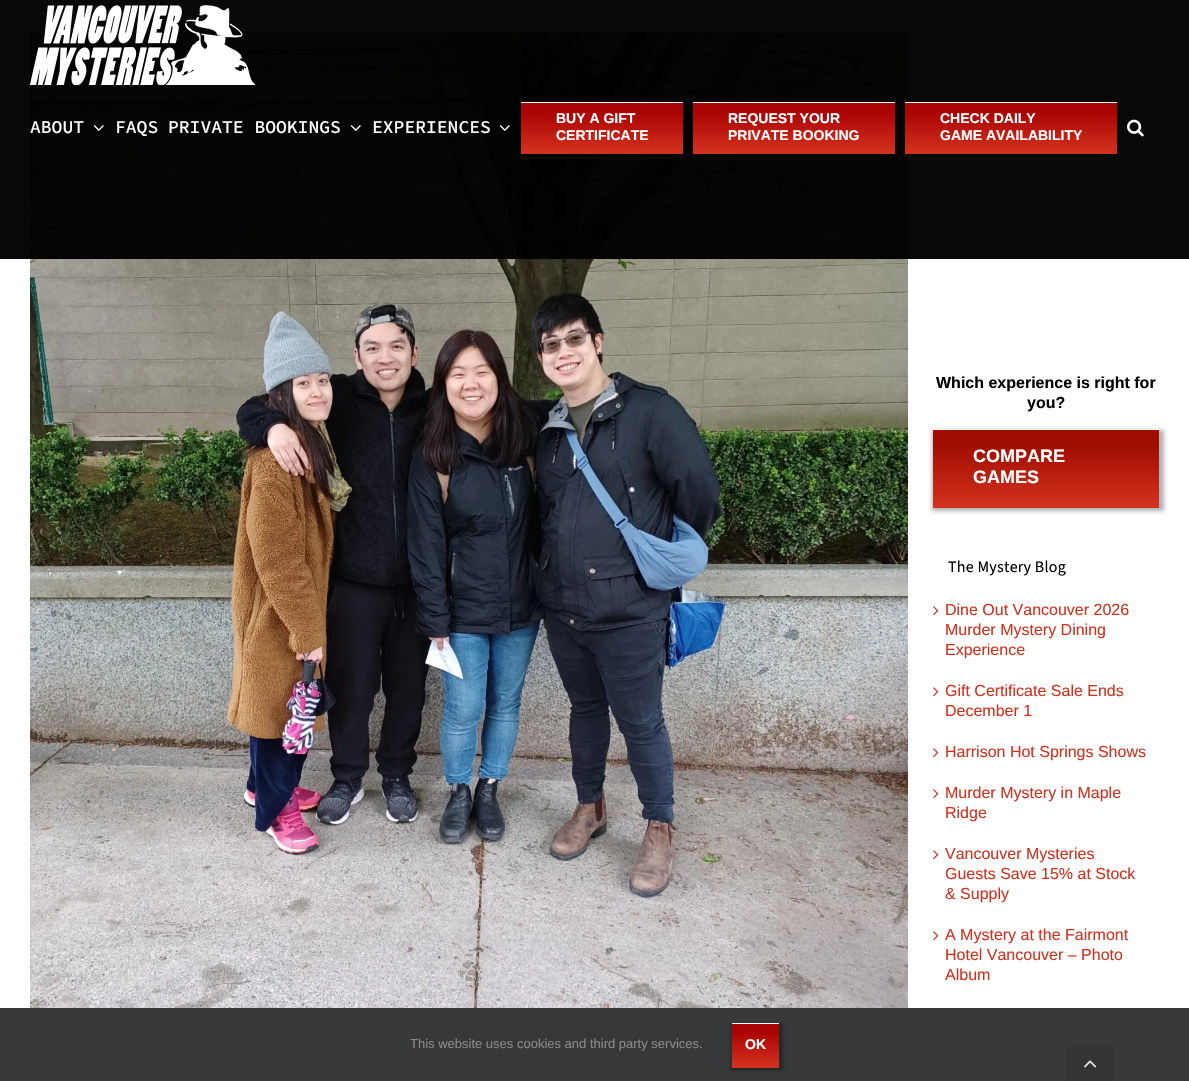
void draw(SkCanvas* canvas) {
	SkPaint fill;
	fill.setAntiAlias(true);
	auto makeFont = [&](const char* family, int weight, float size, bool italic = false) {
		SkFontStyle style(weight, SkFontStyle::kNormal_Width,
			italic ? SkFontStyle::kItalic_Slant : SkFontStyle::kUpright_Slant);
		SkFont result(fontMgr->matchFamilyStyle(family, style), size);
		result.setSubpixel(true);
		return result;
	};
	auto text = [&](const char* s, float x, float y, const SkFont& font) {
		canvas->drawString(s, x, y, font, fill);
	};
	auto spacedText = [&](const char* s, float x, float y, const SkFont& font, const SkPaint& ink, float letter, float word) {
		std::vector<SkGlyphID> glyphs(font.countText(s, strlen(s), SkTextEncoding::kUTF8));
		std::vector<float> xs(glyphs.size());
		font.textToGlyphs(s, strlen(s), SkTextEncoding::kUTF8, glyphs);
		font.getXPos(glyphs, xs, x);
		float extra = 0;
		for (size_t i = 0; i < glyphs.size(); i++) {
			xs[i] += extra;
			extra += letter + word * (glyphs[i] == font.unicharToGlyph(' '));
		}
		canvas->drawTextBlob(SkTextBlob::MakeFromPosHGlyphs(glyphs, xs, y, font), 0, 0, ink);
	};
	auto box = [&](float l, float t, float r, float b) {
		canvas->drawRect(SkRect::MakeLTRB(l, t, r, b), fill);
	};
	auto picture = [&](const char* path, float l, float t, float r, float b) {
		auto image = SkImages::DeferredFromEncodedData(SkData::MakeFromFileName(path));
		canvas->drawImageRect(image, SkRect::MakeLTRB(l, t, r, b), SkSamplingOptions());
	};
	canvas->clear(0xFFFFFFFF);
	picture("image5.png", 30, 32, 908, 1008);
	fill.setColor(0xF7000000);
	box(0, 0, 1189, 259);
	picture("image0.png", 30, 5, 255, 85);
	picture("image1.png", 93, 125, 104, 131);
	picture("image2.png", 350, 125, 361, 131);
	picture("image3.png", 499, 125, 510, 131);
	fill.setColor(0xFFD2311E);
	box(521, 152, 683, 154);
	{
		const SkColor colors[] = {0xFFAA0303, 0xFFD2311E};
		const float stops[] = {0.2f, 1};
		const SkPoint ends[] = {{602, 102}, {602, 152}};
		fill.setShader(SkGradientShader::MakeLinear(ends, colors, stops, 2, SkTileMode::kClamp));
		fill.setAlpha(255);
	}
	box(521, 103, 683, 152);
	fill.setShader(nullptr);
	fill.setColor(0xFFFFFFFF);
	box(521, 102, 683, 103);
	fill.setColor(0xFFD2311E);
	box(693, 152, 895, 154);
	{
		const SkColor colors[] = {0xFFAA0303, 0xFFD2311E};
		const float stops[] = {0.2f, 1};
		const SkPoint ends[] = {{794, 102}, {794, 152}};
		fill.setShader(SkGradientShader::MakeLinear(ends, colors, stops, 2, SkTileMode::kClamp));
		fill.setAlpha(255);
	}
	box(693, 103, 895, 152);
	fill.setShader(nullptr);
	fill.setColor(0xFFFFFFFF);
	box(693, 102, 895, 103);
	fill.setColor(0xFFD2311E);
	box(905, 152, 1117, 154);
	{
		const SkColor colors[] = {0xFFAA0303, 0xFFD2311E};
		const float stops[] = {0.2f, 1};
		const SkPoint ends[] = {{1011, 102}, {1011, 152}};
		fill.setShader(SkGradientShader::MakeLinear(ends, colors, stops, 2, SkTileMode::kClamp));
		fill.setAlpha(255);
	}
	box(905, 103, 1117, 152);
	fill.setShader(nullptr);
	fill.setColor(0xFFFFFFFF);
	box(905, 102, 1117, 103);
	picture("image4.png", 1127, 119, 1144, 137);
	fill.setColor(0x4D000000);
	fill.setMaskFilter(SkMaskFilter::MakeBlur(kNormal_SkBlurStyle, 2));
	canvas->drawRect(SkRect::MakeLTRB(932, 430, 1164, 511), fill);
	fill.setMaskFilter(nullptr);
	fill.setColor(0xFFD2311E);
	box(933, 505, 1159, 508);
	{
		const SkColor colors[] = {0xFFA00D00, 0xFFD2311E};
		const float stops[] = {0.2f, 1};
		const SkPoint ends[] = {{1046, 429}, {1046, 505}};
		fill.setShader(SkGradientShader::MakeLinear(ends, colors, stops, 2, SkTileMode::kClamp));
		fill.setAlpha(255);
	}
	box(933, 430, 1159, 505);
	fill.setShader(nullptr);
	fill.setColor(0xFFFFFFFF);
	box(933, 429, 1159, 430);
	picture("image6.png", 933, 606, 939, 616);
	picture("image6.png", 933, 687, 939, 697);
	picture("image6.png", 933, 748, 939, 758);
	picture("image6.png", 933, 789, 939, 799);
	picture("image6.png", 933, 850, 939, 860);
	picture("image6.png", 933, 931, 939, 941);
	fill.setColor(0xFF363839);
	box(0, 1008, 1189, 1081);
	fill.setColor(0x4D000000);
	fill.setMaskFilter(SkMaskFilter::MakeBlur(kNormal_SkBlurStyle, 1.5f));
	canvas->drawRect(SkRect::MakeLTRB(731, 1024, 783, 1071), fill);
	fill.setMaskFilter(nullptr);
	fill.setColor(0xFFD2311E);
	box(732, 1066, 779, 1068);
	{
		const SkColor colors[] = {0xFFAA0303, 0xFFD2311E};
		const float stops[] = {0.2f, 1};
		const SkPoint ends[] = {{756, 1023}, {756, 1066}};
		fill.setShader(SkGradientShader::MakeLinear(ends, colors, stops, 2, SkTileMode::kClamp));
		fill.setAlpha(255);
	}
	box(732, 1024, 779, 1066);
	fill.setShader(nullptr);
	fill.setColor(0xFFFFFFFF);
	box(732, 1023, 779, 1024);
	fill.setColor(0xFF333434);
	canvas->drawPath(SkPathBuilder().moveTo(1070, 1046).lineTo(1110, 1046).cubicTo(1112, 1046, 1114, 1048, 1114, 1050).lineTo(1114, 1081).lineTo(1066, 1081).lineTo(1066, 1050).cubicTo(1066, 1048, 1068, 1046, 1070, 1046).close().detach(), fill);
	picture("image7.png", 1084, 1060, 1097, 1068);
	auto font1 = makeFont("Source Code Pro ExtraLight", 200, 18);
	fill.setColor(0xFFFFFFFF);
	text("ABOUT", 30, 133, font1);
	text("FAQS", 115, 133, font1);
	text("PRIVATE BOOKINGS", 168, 133, font1);
	text("EXPERIENCES", 372, 133, font1);
	auto font2 = makeFont("Liberation Sans", 700, 14);
	text("BUY A GIFT", 556, 123, font2);
	text("CERTIFICATE", 556, 140, font2);
	text("REQUEST YOUR", 728, 123, font2);
	text("PRIVATE BOOKING", 728, 140, font2);
	text("CHECK DAILY", 940, 123, font2);
	text("GAME AVAILABILITY", 940, 140, font2);
	auto font3 = makeFont("Liberation Sans", 700, 16);
	fill.setColor(0xFF000000);
	text("Which experience is right for", 936, 388, font3);
	text("you?", 1027, 408, font3);
	auto font4 = makeFont("Liberation Sans", 700, 18);
	fill.setColor(0xFFFFFFFF);
	text("COMPARE", 973, 462, font4);
	text("GAMES", 973, 483, font4);
	auto font5 = makeFont("Source Sans 3", 400, 16);
	fill.setColor(0xFF000000);
	spacedText("The Mystery Blog", 948, 572, font5, fill, 0.25f, 0);
	auto font6 = makeFont("Liberation Sans", 400, 16);
	fill.setColor(0xFFD2311E);
	text("Dine Out Vancouver 2026", 945, 615, font6);
	text("Murder Mystery Dining", 945, 635, font6);
	text("Experience", 945, 655, font6);
	text("Gift Certificate Sale Ends", 945, 696, font6);
	text("December 1", 945, 716, font6);
	text("Harrison Hot Springs Shows", 945, 757, font6);
	text("Murder Mystery in Maple", 945, 798, font6);
	text("Ridge", 945, 818, font6);
	text("Vancouver Mysteries", 945, 859, font6);
	text("Guests Save 15% at Stock", 945, 879, font6);
	text("& Supply", 945, 899, font6);
	text("A Mystery at the Fairmont", 945, 940, font6);
	text("Hotel Vancouver – Photo", 945, 960, font6);
	text("Album", 945, 980, font6);
	auto font7 = makeFont("Liberation Sans", 400, 13);
	fill.setColor(0xFF8C8989);
	text("This website uses cookies and third party services.", 410, 1048, font7);
	fill.setColor(0xFFFFFFFF);
	text("OK", 745, 1049, font2);
}
